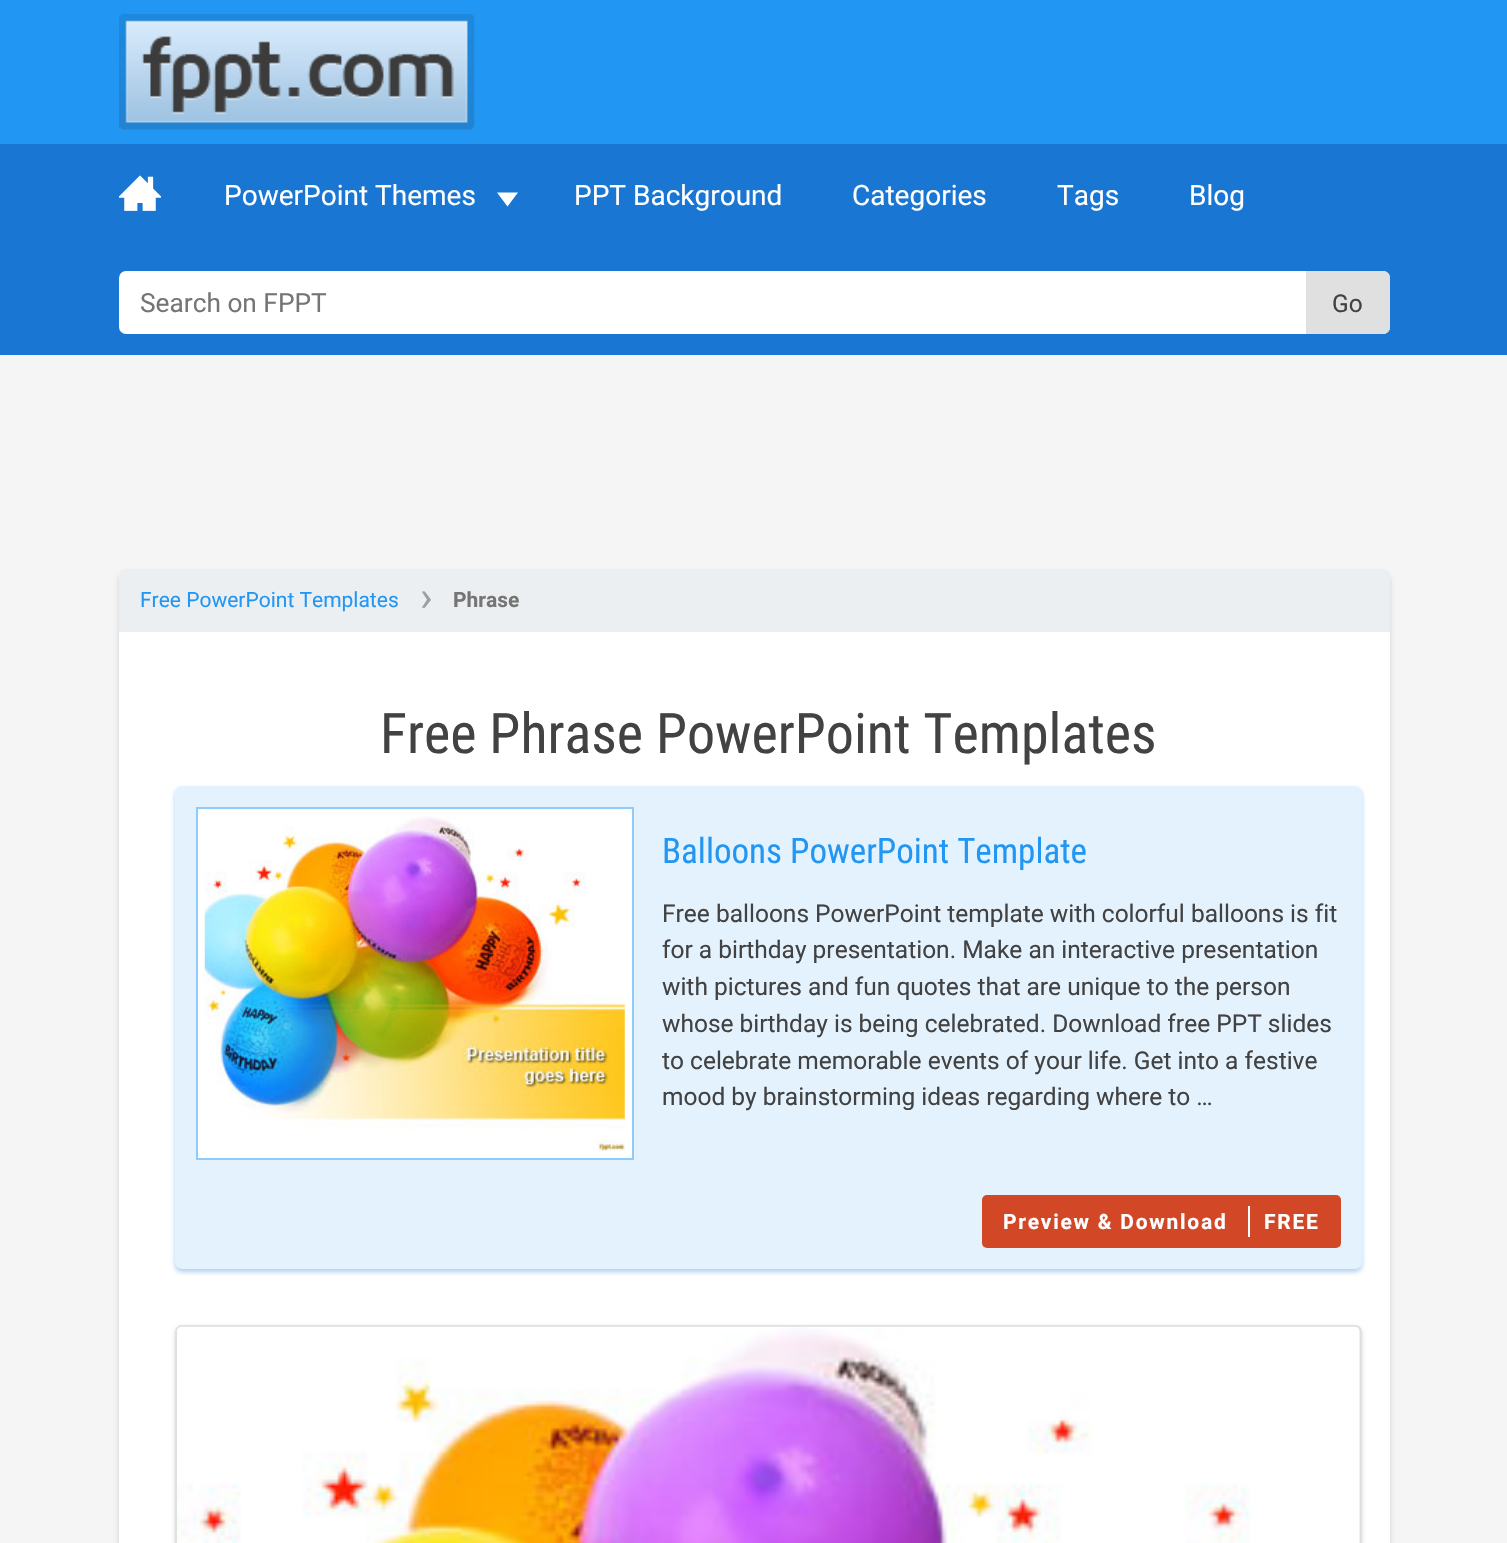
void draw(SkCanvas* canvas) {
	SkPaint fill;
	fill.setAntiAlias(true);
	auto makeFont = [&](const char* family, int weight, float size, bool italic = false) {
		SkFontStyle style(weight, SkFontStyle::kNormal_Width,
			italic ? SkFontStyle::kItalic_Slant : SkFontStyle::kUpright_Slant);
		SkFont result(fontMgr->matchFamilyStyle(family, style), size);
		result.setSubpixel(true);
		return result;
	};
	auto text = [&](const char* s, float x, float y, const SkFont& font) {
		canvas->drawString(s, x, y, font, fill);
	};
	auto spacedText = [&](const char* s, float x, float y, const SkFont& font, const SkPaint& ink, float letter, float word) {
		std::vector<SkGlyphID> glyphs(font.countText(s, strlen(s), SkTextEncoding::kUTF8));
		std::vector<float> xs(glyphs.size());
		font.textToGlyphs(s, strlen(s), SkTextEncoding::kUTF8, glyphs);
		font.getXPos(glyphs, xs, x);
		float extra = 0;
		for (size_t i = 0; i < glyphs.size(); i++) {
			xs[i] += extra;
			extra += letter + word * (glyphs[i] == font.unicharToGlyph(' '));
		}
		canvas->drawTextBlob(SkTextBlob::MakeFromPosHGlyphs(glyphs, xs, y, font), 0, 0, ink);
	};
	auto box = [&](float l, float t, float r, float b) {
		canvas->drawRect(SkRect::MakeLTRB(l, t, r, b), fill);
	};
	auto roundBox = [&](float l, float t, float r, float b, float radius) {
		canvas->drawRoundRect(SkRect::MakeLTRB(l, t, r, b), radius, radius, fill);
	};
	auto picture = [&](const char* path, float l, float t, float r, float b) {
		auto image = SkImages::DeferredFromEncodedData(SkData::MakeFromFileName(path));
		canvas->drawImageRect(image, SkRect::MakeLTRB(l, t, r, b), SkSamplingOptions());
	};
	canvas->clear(0xFFF5F5F5);
	fill.setColor(0xFF2196F3);
	box(0, 0, 1507, 144);
	picture("image0.png", 119, 14, 475, 130);
	fill.setColor(0xFF1976D2);
	box(0, 144, 1507, 355);
	picture("image1.png", 119, 175, 161, 211);
	fill.setColor(0xFFFFFFFF);
	canvas->drawPath(SkPathBuilder().moveTo(497, 192.5f).lineTo(518, 192.5f).lineTo(507.5f, 206.5f).close().detach(), fill);
	roundBox(119, 271, 1390, 334, 7);
	fill.setColor(0xFFE0E0E0);
	canvas->drawPath(SkPathBuilder().moveTo(1306, 271).lineTo(1383, 271).cubicTo(1387, 271, 1390, 274, 1390, 278).lineTo(1390, 327).cubicTo(1390, 331, 1387, 334, 1383, 334).lineTo(1306, 334).close().detach(), fill);
	fill.setColor(0x26000000);
	fill.setMaskFilter(SkMaskFilter::MakeBlur(kNormal_SkBlurStyle, 2.5f));
	canvas->drawRoundRect(SkRect::MakeLTRB(119, 574, 1390, 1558), 7, 7, fill);
	fill.setMaskFilter(nullptr);
	fill.setColor(0xFFFFFFFF);
	roundBox(119, 569, 1390, 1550, 7);
	fill.setColor(0xFFECEFF1);
	canvas->drawPath(SkPathBuilder().moveTo(126, 569).lineTo(1383, 569).cubicTo(1387, 569, 1390, 572, 1390, 576).lineTo(1390, 632).lineTo(119, 632).lineTo(119, 576).cubicTo(119, 572, 122, 569, 126, 569).close().detach(), fill);
	fill.setColor(0x591976D2);
	fill.setMaskFilter(SkMaskFilter::MakeBlur(kNormal_SkBlurStyle, 2.5f));
	canvas->drawRoundRect(SkRect::MakeLTRB(175, 789, 1362, 1272), 7, 7, fill);
	fill.setMaskFilter(nullptr);
	fill.setColor(0xFFE3F2FD);
	roundBox(175, 786, 1362, 1269, 7);
	fill.setColor(0xFFFFFFFF);
	canvas->drawRect(SkRect::MakeLTRB(197, 808, 633, 1159), fill);
	fill.setStyle(SkPaint::kStroke_Style);
	fill.setStrokeWidth(2);
	fill.setColor(0xFF90CAF9);
	canvas->drawRect(SkRect::MakeLTRB(197, 808, 633, 1159), fill);
	picture("image2.png", 204, 816, 625, 1152);
	fill.setStyle(SkPaint::kFill_Style);
	fill.setColor(0xFFD24726);
	roundBox(982, 1195, 1341, 1248, 5);
	fill.setColor(0xFFFFFFFF);
	box(1248, 1206, 1250, 1237);
	fill.setColor(0x26000000);
	fill.setMaskFilter(SkMaskFilter::MakeBlur(kNormal_SkBlurStyle, 2));
	canvas->drawRoundRect(SkRect::MakeLTRB(175, 1327, 1362, 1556), 7, 7, fill);
	fill.setMaskFilter(nullptr);
	fill.setColor(0xFFDDDDDD);
	canvas->drawPath(SkPathBuilder().moveTo(182, 1326).lineTo(1355, 1326).cubicTo(1358.5f, 1326, 1361, 1328.5f, 1361, 1332).lineTo(1361, 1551).lineTo(176, 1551).lineTo(176, 1332).cubicTo(176, 1328.5f, 178.5f, 1326, 182, 1326).close().detach(), fill);
	fill.setStyle(SkPaint::kStroke_Style);
	fill.setColor(0xFFE0E0E0);
	canvas->drawPath(SkPathBuilder().moveTo(182, 1326).lineTo(1355, 1326).cubicTo(1358.5f, 1326, 1361, 1328.5f, 1361, 1332).lineTo(1361, 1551).lineTo(176, 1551).lineTo(176, 1332).cubicTo(176, 1328.5f, 178.5f, 1326, 182, 1326).close().detach(), fill);
	picture("image3.png", 177, 1326, 1360, 1543);
	auto font1 = makeFont("Roboto", 400, 28);
	fill.setStyle(SkPaint::kFill_Style);
	fill.setColor(0xFFFFFFFF);
	text("PowerPoint Themes", 224, 205, font1);
	text("PPT Background", 574, 205, font1);
	text("Categories", 852, 205, font1);
	text("Tags", 1057, 205, font1);
	text("Blog", 1189, 205, font1);
	auto font2 = makeFont("Roboto", 400, 26.25f);
	fill.setColor(0xFF757575);
	text("Search on FPPT", 140, 312, font2);
	auto font3 = makeFont("Roboto", 400, 24.5f);
	fill.setColor(0xFF424242);
	text("Go", 1332, 312, font3);
	auto font4 = makeFont("Roboto", 400, 21);
	fill.setColor(0xFF2196F3);
	text("Free PowerPoint Templates", 140, 607, font4);
	auto font5 = makeFont("Roboto", 400, 42);
	fill.setColor(0xFF9E9E9E);
	text("›", 420, 611, font5);
	auto font6 = makeFont("Roboto", 700, 21);
	fill.setColor(0xFF757575);
	text("Phrase", 453, 607, font6);
	auto font7 = makeFont("Roboto Condensed", 400, 56);
	fill.setColor(0xFF424242);
	text("Free Phrase PowerPoint Templates", 380, 753, font7);
	auto font8 = makeFont("Roboto Condensed", 400, 35);
	fill.setColor(0xFF2196F3);
	text("Balloons PowerPoint Template", 662, 863, font8);
	fill.setColor(0xFF424242);
	text("Free balloons PowerPoint template with colorful balloons is fit", 662, 922, font3);
	text("for a birthday presentation. Make an interactive presentation", 662, 958, font3);
	text("with pictures and fun quotes that are unique to the person", 662, 995, font3);
	text("whose birthday is being celebrated. Download free PPT slides", 662, 1032, font3);
	text("to celebrate memorable events of your life. Get into a festive", 662, 1069, font3);
	text("mood by brainstorming ideas regarding where to …", 662, 1105, font3);
	fill.setColor(0xFFFFFFFF);
	spacedText("Preview & Download", 1003, 1229, font6, fill, 1.75f, 0);
	spacedText("FREE", 1264, 1229, font6, fill, 1.75f, 0);
}
